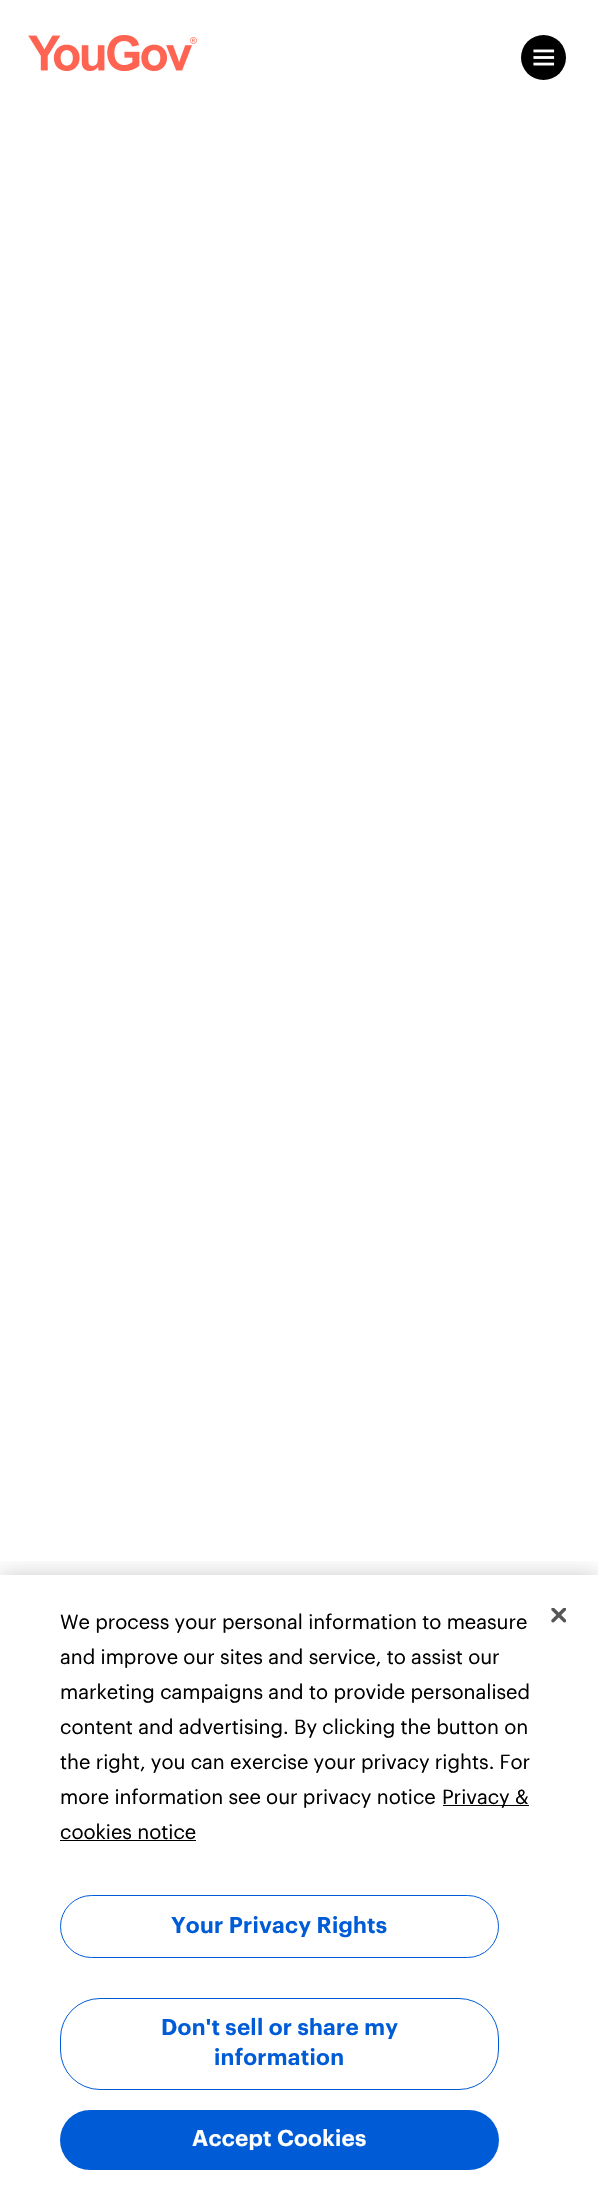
void draw(SkCanvas* canvas) {
	SkPaint fill;
	fill.setAntiAlias(true);
	auto makeFont = [&](const char* family, int weight, float size, bool italic = false) {
		SkFontStyle style(weight, SkFontStyle::kNormal_Width,
			italic ? SkFontStyle::kItalic_Slant : SkFontStyle::kUpright_Slant);
		SkFont result(fontMgr->matchFamilyStyle(family, style), size);
		result.setSubpixel(true);
		return result;
	};
	auto text = [&](const char* s, float x, float y, const SkFont& font) {
		canvas->drawString(s, x, y, font, fill);
	};
	auto spacedText = [&](const char* s, float x, float y, const SkFont& font, const SkPaint& ink, float letter, float word) {
		std::vector<SkGlyphID> glyphs(font.countText(s, strlen(s), SkTextEncoding::kUTF8));
		std::vector<float> xs(glyphs.size());
		font.textToGlyphs(s, strlen(s), SkTextEncoding::kUTF8, glyphs);
		font.getXPos(glyphs, xs, x);
		float extra = 0;
		for (size_t i = 0; i < glyphs.size(); i++) {
			xs[i] += extra;
			extra += letter + word * (glyphs[i] == font.unicharToGlyph(' '));
		}
		canvas->drawTextBlob(SkTextBlob::MakeFromPosHGlyphs(glyphs, xs, y, font), 0, 0, ink);
	};
	auto box = [&](float l, float t, float r, float b) {
		canvas->drawRect(SkRect::MakeLTRB(l, t, r, b), fill);
	};
	auto roundBox = [&](float l, float t, float r, float b, float radius) {
		canvas->drawRoundRect(SkRect::MakeLTRB(l, t, r, b), radius, radius, fill);
	};
	auto picture = [&](const char* path, float l, float t, float r, float b) {
		auto image = SkImages::DeferredFromEncodedData(SkData::MakeFromFileName(path));
		canvas->drawImageRect(image, SkRect::MakeLTRB(l, t, r, b), SkSamplingOptions());
	};
	canvas->clear(0xFFFFFFFF);
	picture("image0.png", 28, 35, 197, 71);
	fill.setColor(0xFF000000);
	canvas->drawCircle(543.5f, 57.5f, 22.5f, fill);
	picture("image1.png", 533, 49, 555, 66);
	canvas->save();
	canvas->clipRect(SkRect::MakeLTRB(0, 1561, 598, 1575));
	fill.setColor(0x33000000);
	fill.setMaskFilter(SkMaskFilter::MakeBlur(kNormal_SkBlurStyle, 11));
	canvas->drawRect(SkRect::MakeLTRB(0, 1575, 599, 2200), fill);
	fill.setMaskFilter(nullptr);
	canvas->restore();
	fill.setColor(0xFF000000);
	box(443, 1805, 529, 1806);
	box(60, 1840, 196, 1841);
	fill.setStyle(SkPaint::kStroke_Style);
	fill.setStrokeWidth(1);
	fill.setColor(0xFF005BD7);
	canvas->drawRoundRect(SkRect::MakeLTRB(60.5f, 1895.5f, 498.5f, 1957.5f), 31, 31, fill);
	canvas->drawRoundRect(SkRect::MakeLTRB(60.5f, 1998.5f, 498.5f, 2089.5f), 39.5f, 39.5f, fill);
	fill.setStyle(SkPaint::kFill_Style);
	roundBox(60, 2110, 499, 2170, 30);
	picture("image2.png", 551, 1608, 566, 1623);
	auto font1 = makeFont("Graphik", 400, 20);
	fill.setColor(0xFF000000);
	text("We process your personal information to measure", 60, 1629, font1);
	text("and improve our sites and service, to assist our", 60, 1664, font1);
	text("marketing campaigns and to provide personalised", 60, 1699, font1);
	text("content and advertising. By clicking the button on", 60, 1734, font1);
	text("the right, you can exercise your privacy rights. For", 60, 1769, font1);
	text("more information see our privacy notice", 60, 1804, font1);
	text("Privacy &", 442, 1804, font1);
	text("cookies notice", 60, 1839, font1);
	auto font2 = makeFont("Graphik", 600, 22.5f);
	fill.setColor(0xFF005BD7);
	spacedText("Your Privacy Rights", 171, 1933, font2, fill, 0.25f, 0);
	spacedText("Don't sell or share my", 161, 2035, font2, fill, 0.25f, 0);
	spacedText("information", 214, 2065, font2, fill, 0.25f, 0);
	fill.setColor(0xFFFFFFFF);
	spacedText("Accept Cookies", 192, 2146, font2, fill, 0.25f, 0);
}
